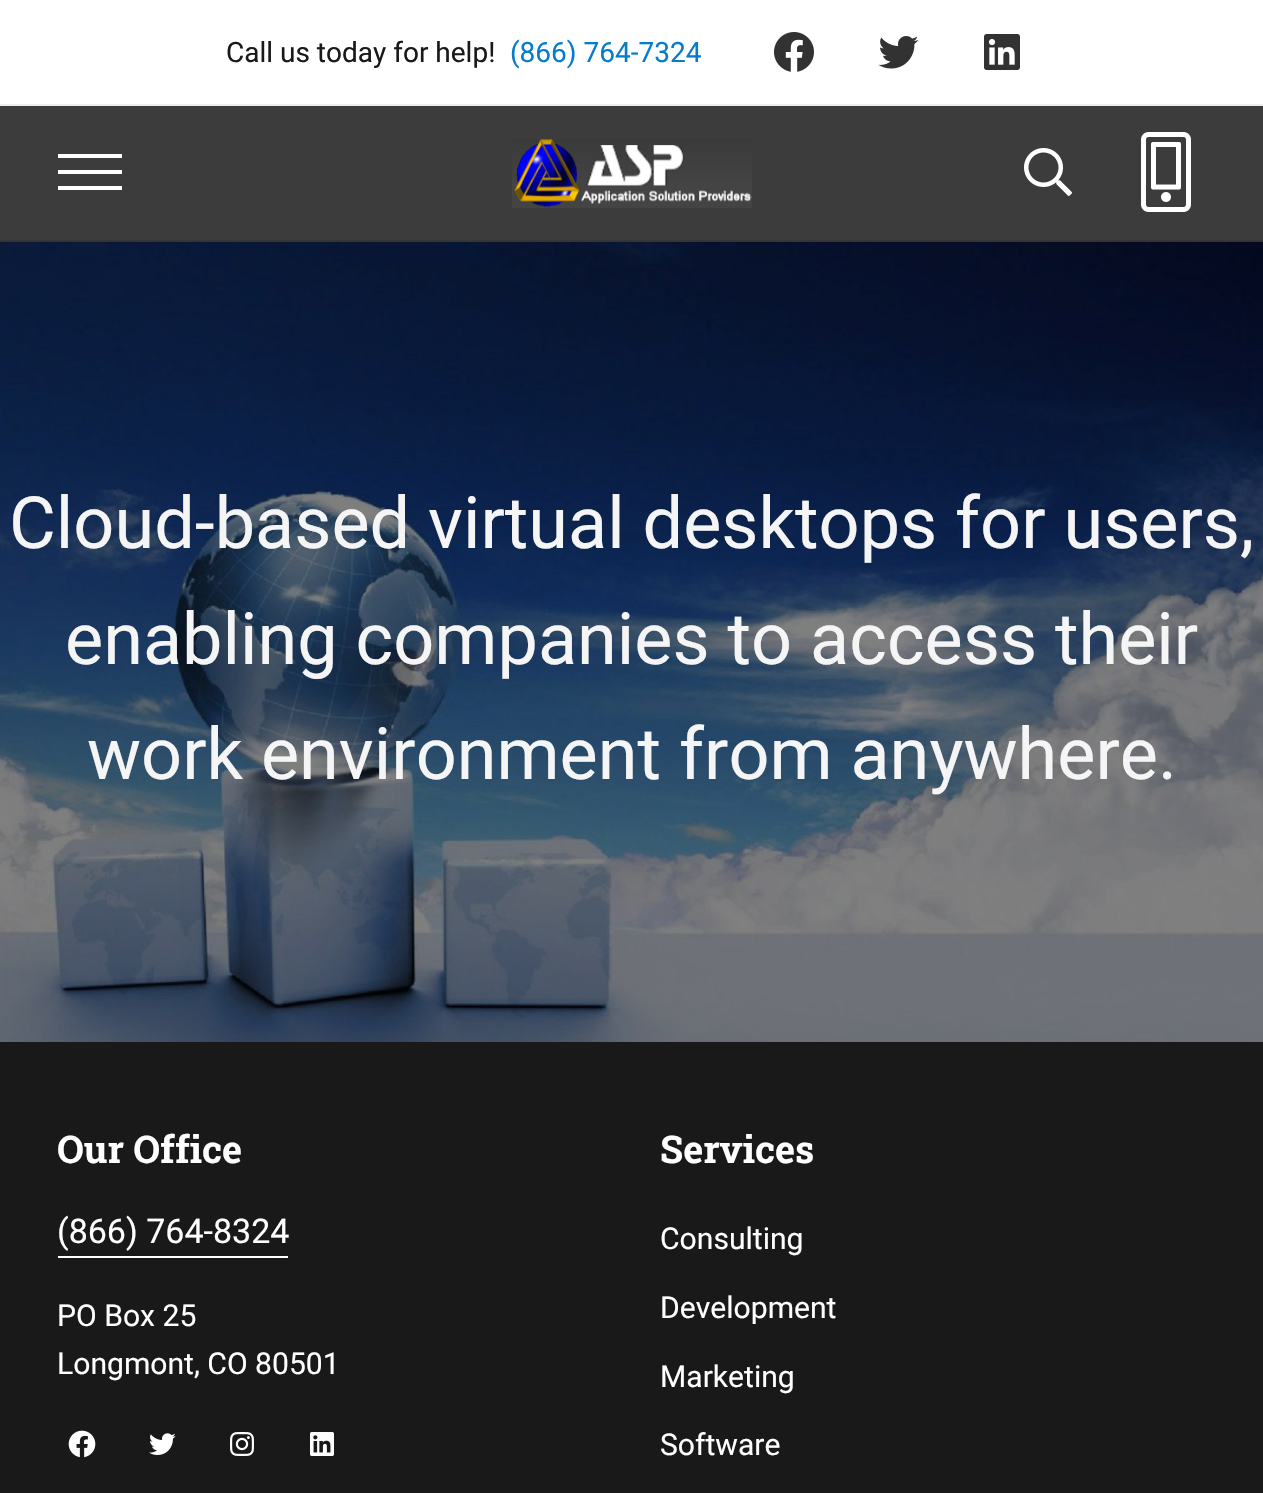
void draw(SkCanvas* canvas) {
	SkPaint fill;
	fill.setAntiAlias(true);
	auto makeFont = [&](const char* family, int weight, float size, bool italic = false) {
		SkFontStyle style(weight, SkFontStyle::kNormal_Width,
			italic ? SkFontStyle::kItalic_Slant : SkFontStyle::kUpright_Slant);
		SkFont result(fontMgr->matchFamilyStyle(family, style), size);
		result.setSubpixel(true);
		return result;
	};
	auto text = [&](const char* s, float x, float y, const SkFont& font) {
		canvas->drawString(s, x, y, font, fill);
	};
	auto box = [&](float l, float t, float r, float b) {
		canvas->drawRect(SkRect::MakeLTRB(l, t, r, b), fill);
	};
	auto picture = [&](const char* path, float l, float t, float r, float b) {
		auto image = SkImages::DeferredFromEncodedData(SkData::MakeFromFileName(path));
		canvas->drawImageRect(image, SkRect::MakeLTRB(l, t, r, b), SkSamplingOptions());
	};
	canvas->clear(0xFFFFFFFF);
	picture("image0.png", 774, 32, 814, 72);
	picture("image1.png", 878, 36, 919, 69);
	picture("image2.png", 984, 34, 1020, 70);
	fill.setColor(0xFFEDEDED);
	box(0, 104, 1263, 106);
	fill.setColor(0xFF3C3C3C);
	box(0, 106, 1263, 240);
	fill.setColor(0xFF353535);
	box(0, 240, 1263, 242);
	fill.setColor(0xFFFFFFFF);
	box(58, 170, 122, 174);
	box(58, 154, 122, 158);
	box(58, 186, 122, 190);
	picture("image3.png", 512, 139, 752, 208);
	picture("image4.png", 1024, 148, 1072, 196);
	picture("image5.png", 1141, 132, 1191, 212);
	picture("image6.png", 0, 242, 1263, 1042);
	fill.setColor(0xFF191919);
	box(0, 1042, 1263, 1493);
	fill.setColor(0xFFFFFFFF);
	box(58, 1256, 288, 1258);
	picture("image7.png", 68, 1430, 96, 1458);
	picture("image8.png", 149, 1433, 176, 1455);
	picture("image9.png", 230, 1432, 254, 1456);
	picture("image10.png", 310, 1432, 334, 1456);
	auto font1 = makeFont("Roboto", 400, 28);
	fill.setColor(0xFF191919);
	text("Call us today for help!", 226, 62, font1);
	fill.setColor(0xFF067CCC);
	text("(866) 764-7324", 510, 62, font1);
	auto font2 = makeFont("Roboto", 400, 72);
	fill.setColor(0xFFF5F5F5);
	text("Cloud-based virtual desktops for users,", 9, 548, font2);
	text("enabling companies to access their", 65, 664, font2);
	text("work environment from anywhere.", 87, 779, font2);
	auto font3 = makeFont("Roboto Slab", 700, 38);
	fill.setColor(0xFFFFFFFF);
	text("Our Office", 57, 1163, font3);
	auto font4 = makeFont("Roboto", 400, 34);
	text("(866) 764-8324", 57, 1243, font4);
	auto font5 = makeFont("Roboto", 400, 30.1f);
	text("PO Box 25", 57, 1326, font5);
	text("Longmont, CO 80501", 57, 1374, font5);
	text("Services", 660, 1163, font3);
	text("Consulting", 660, 1249, font5);
	text("Development", 660, 1318, font5);
	text("Marketing", 660, 1387, font5);
	text("Software", 660, 1455, font5);
}
